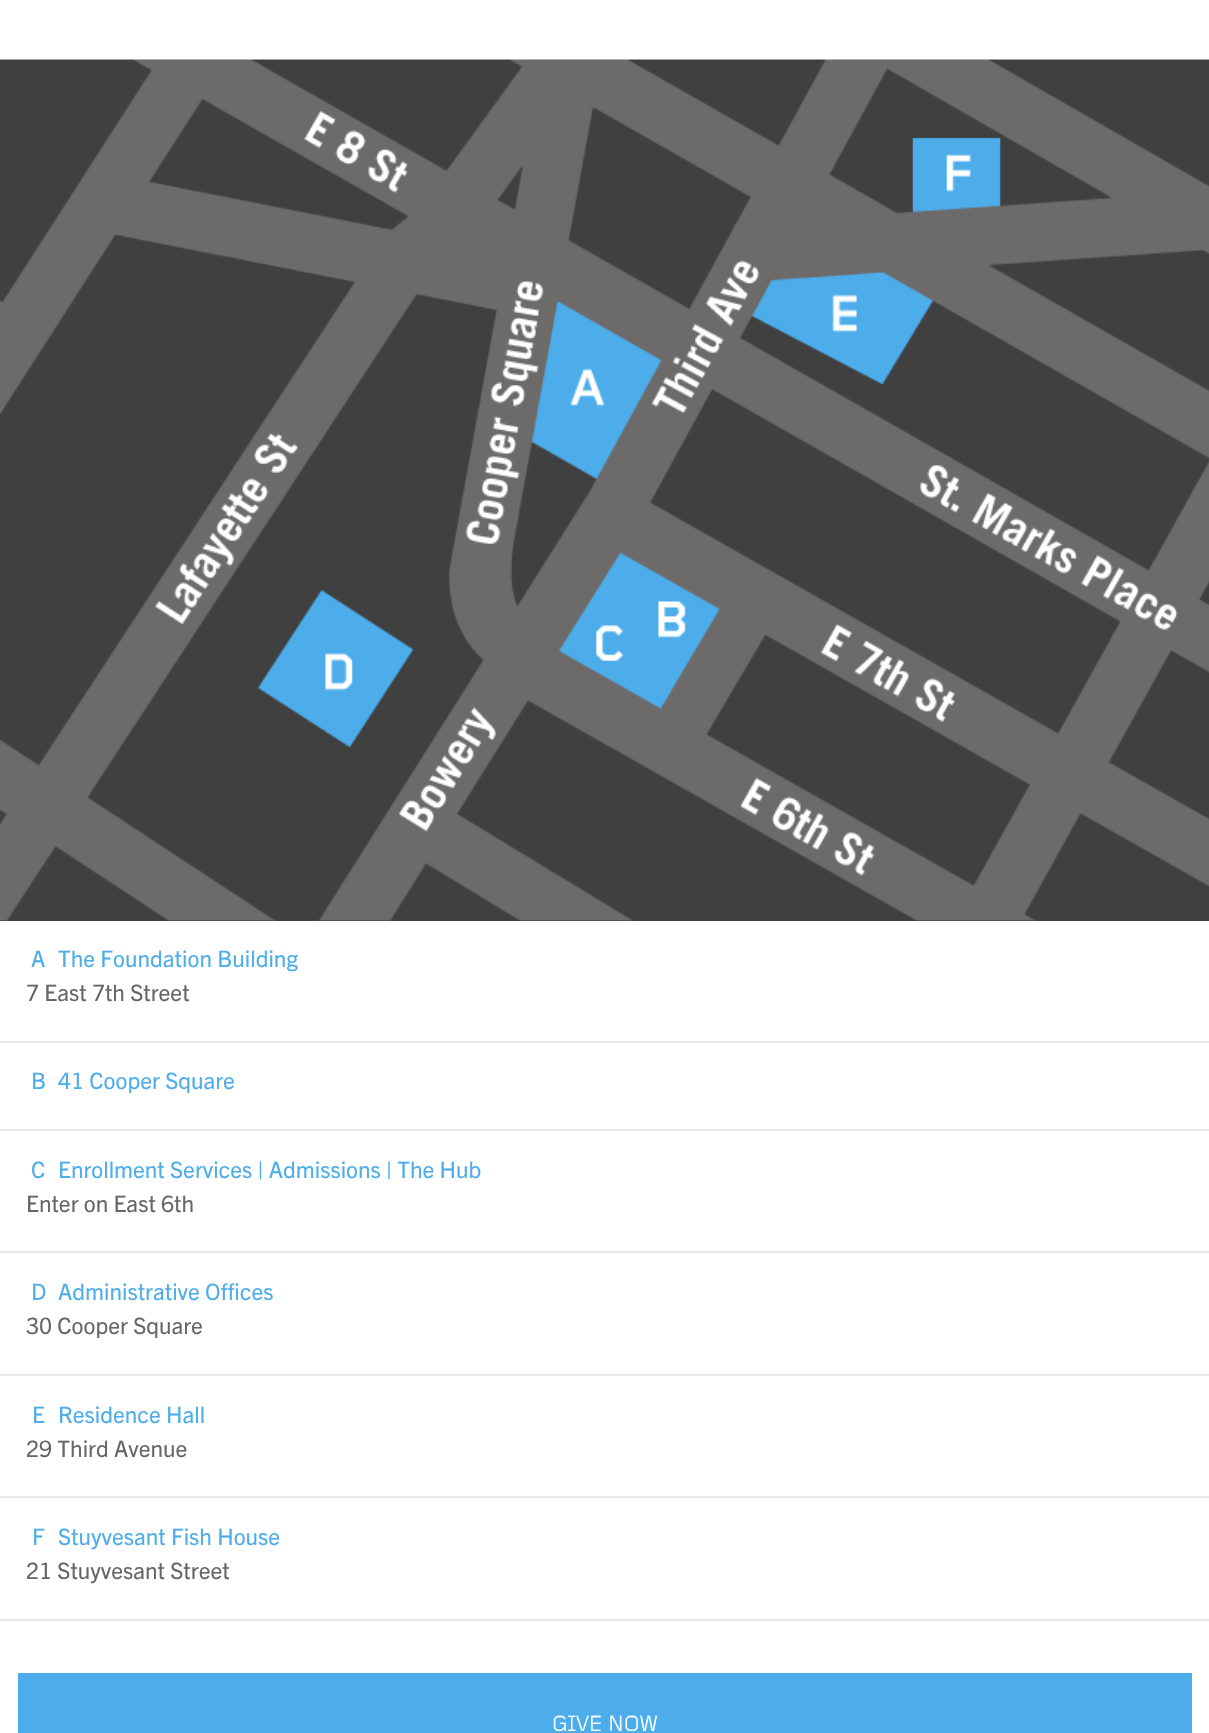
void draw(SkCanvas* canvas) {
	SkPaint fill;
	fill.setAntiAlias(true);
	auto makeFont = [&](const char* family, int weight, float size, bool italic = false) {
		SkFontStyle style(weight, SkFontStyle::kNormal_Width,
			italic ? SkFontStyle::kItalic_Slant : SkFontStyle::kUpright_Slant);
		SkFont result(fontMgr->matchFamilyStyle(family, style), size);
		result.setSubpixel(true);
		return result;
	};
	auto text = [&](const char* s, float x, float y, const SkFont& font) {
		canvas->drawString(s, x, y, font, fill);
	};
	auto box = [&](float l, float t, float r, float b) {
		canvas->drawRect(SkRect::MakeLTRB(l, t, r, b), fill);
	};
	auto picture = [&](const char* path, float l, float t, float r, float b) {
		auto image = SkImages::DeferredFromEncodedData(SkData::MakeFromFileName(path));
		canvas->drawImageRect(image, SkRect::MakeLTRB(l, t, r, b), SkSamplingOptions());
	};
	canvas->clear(0xFFFFFFFF);
	fill.setColor(0xFF404040);
	box(0, 920, 1209, 921);
	picture("image0.png", 0, 59, 1209, 921);
	fill.setColor(0xFFE7E7E7);
	box(0, 1041, 1209, 1043);
	box(0, 1129, 1209, 1131);
	box(0, 1251, 1209, 1253);
	box(0, 1374, 1209, 1376);
	box(0, 1496, 1209, 1498);
	box(0, 1619, 1209, 1621);
	fill.setColor(0xFF4DADEA);
	box(18, 1673, 1192, 1733);
	auto font1 = makeFont("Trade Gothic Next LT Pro", 400, 22.75f);
	text("A", 31, 967, font1);
	text("The Foundation Building", 58, 967, font1);
	fill.setColor(0xFF666666);
	text("7 East 7th Street", 26, 1001, font1);
	fill.setColor(0xFF4DADEA);
	text("B", 31, 1089, font1);
	text("41 Cooper Square", 58, 1089, font1);
	text("C", 31, 1178, font1);
	text("Enrollment Services | Admissions | The Hub", 58, 1178, font1);
	fill.setColor(0xFF666666);
	text("Enter on East 6th", 26, 1212, font1);
	fill.setColor(0xFF4DADEA);
	text("D", 31, 1300, font1);
	text("Administrative Offices", 58, 1300, font1);
	fill.setColor(0xFF666666);
	text("30 Cooper Square", 26, 1334, font1);
	fill.setColor(0xFF4DADEA);
	text("E", 32, 1423, font1);
	text("Residence Hall", 58, 1423, font1);
	fill.setColor(0xFF666666);
	text("29 Third Avenue", 26, 1457, font1);
	fill.setColor(0xFF4DADEA);
	text("F", 32, 1545, font1);
	text("Stuyvesant Fish House", 58, 1545, font1);
	fill.setColor(0xFF666666);
	text("21 Stuyvesant Street", 26, 1579, font1);
	auto font2 = makeFont("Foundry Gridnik", 400, 22.75f);
	fill.setColor(0xFFFFFFFF);
	text("GIVE NOW", 552, 1731, font2);
}
